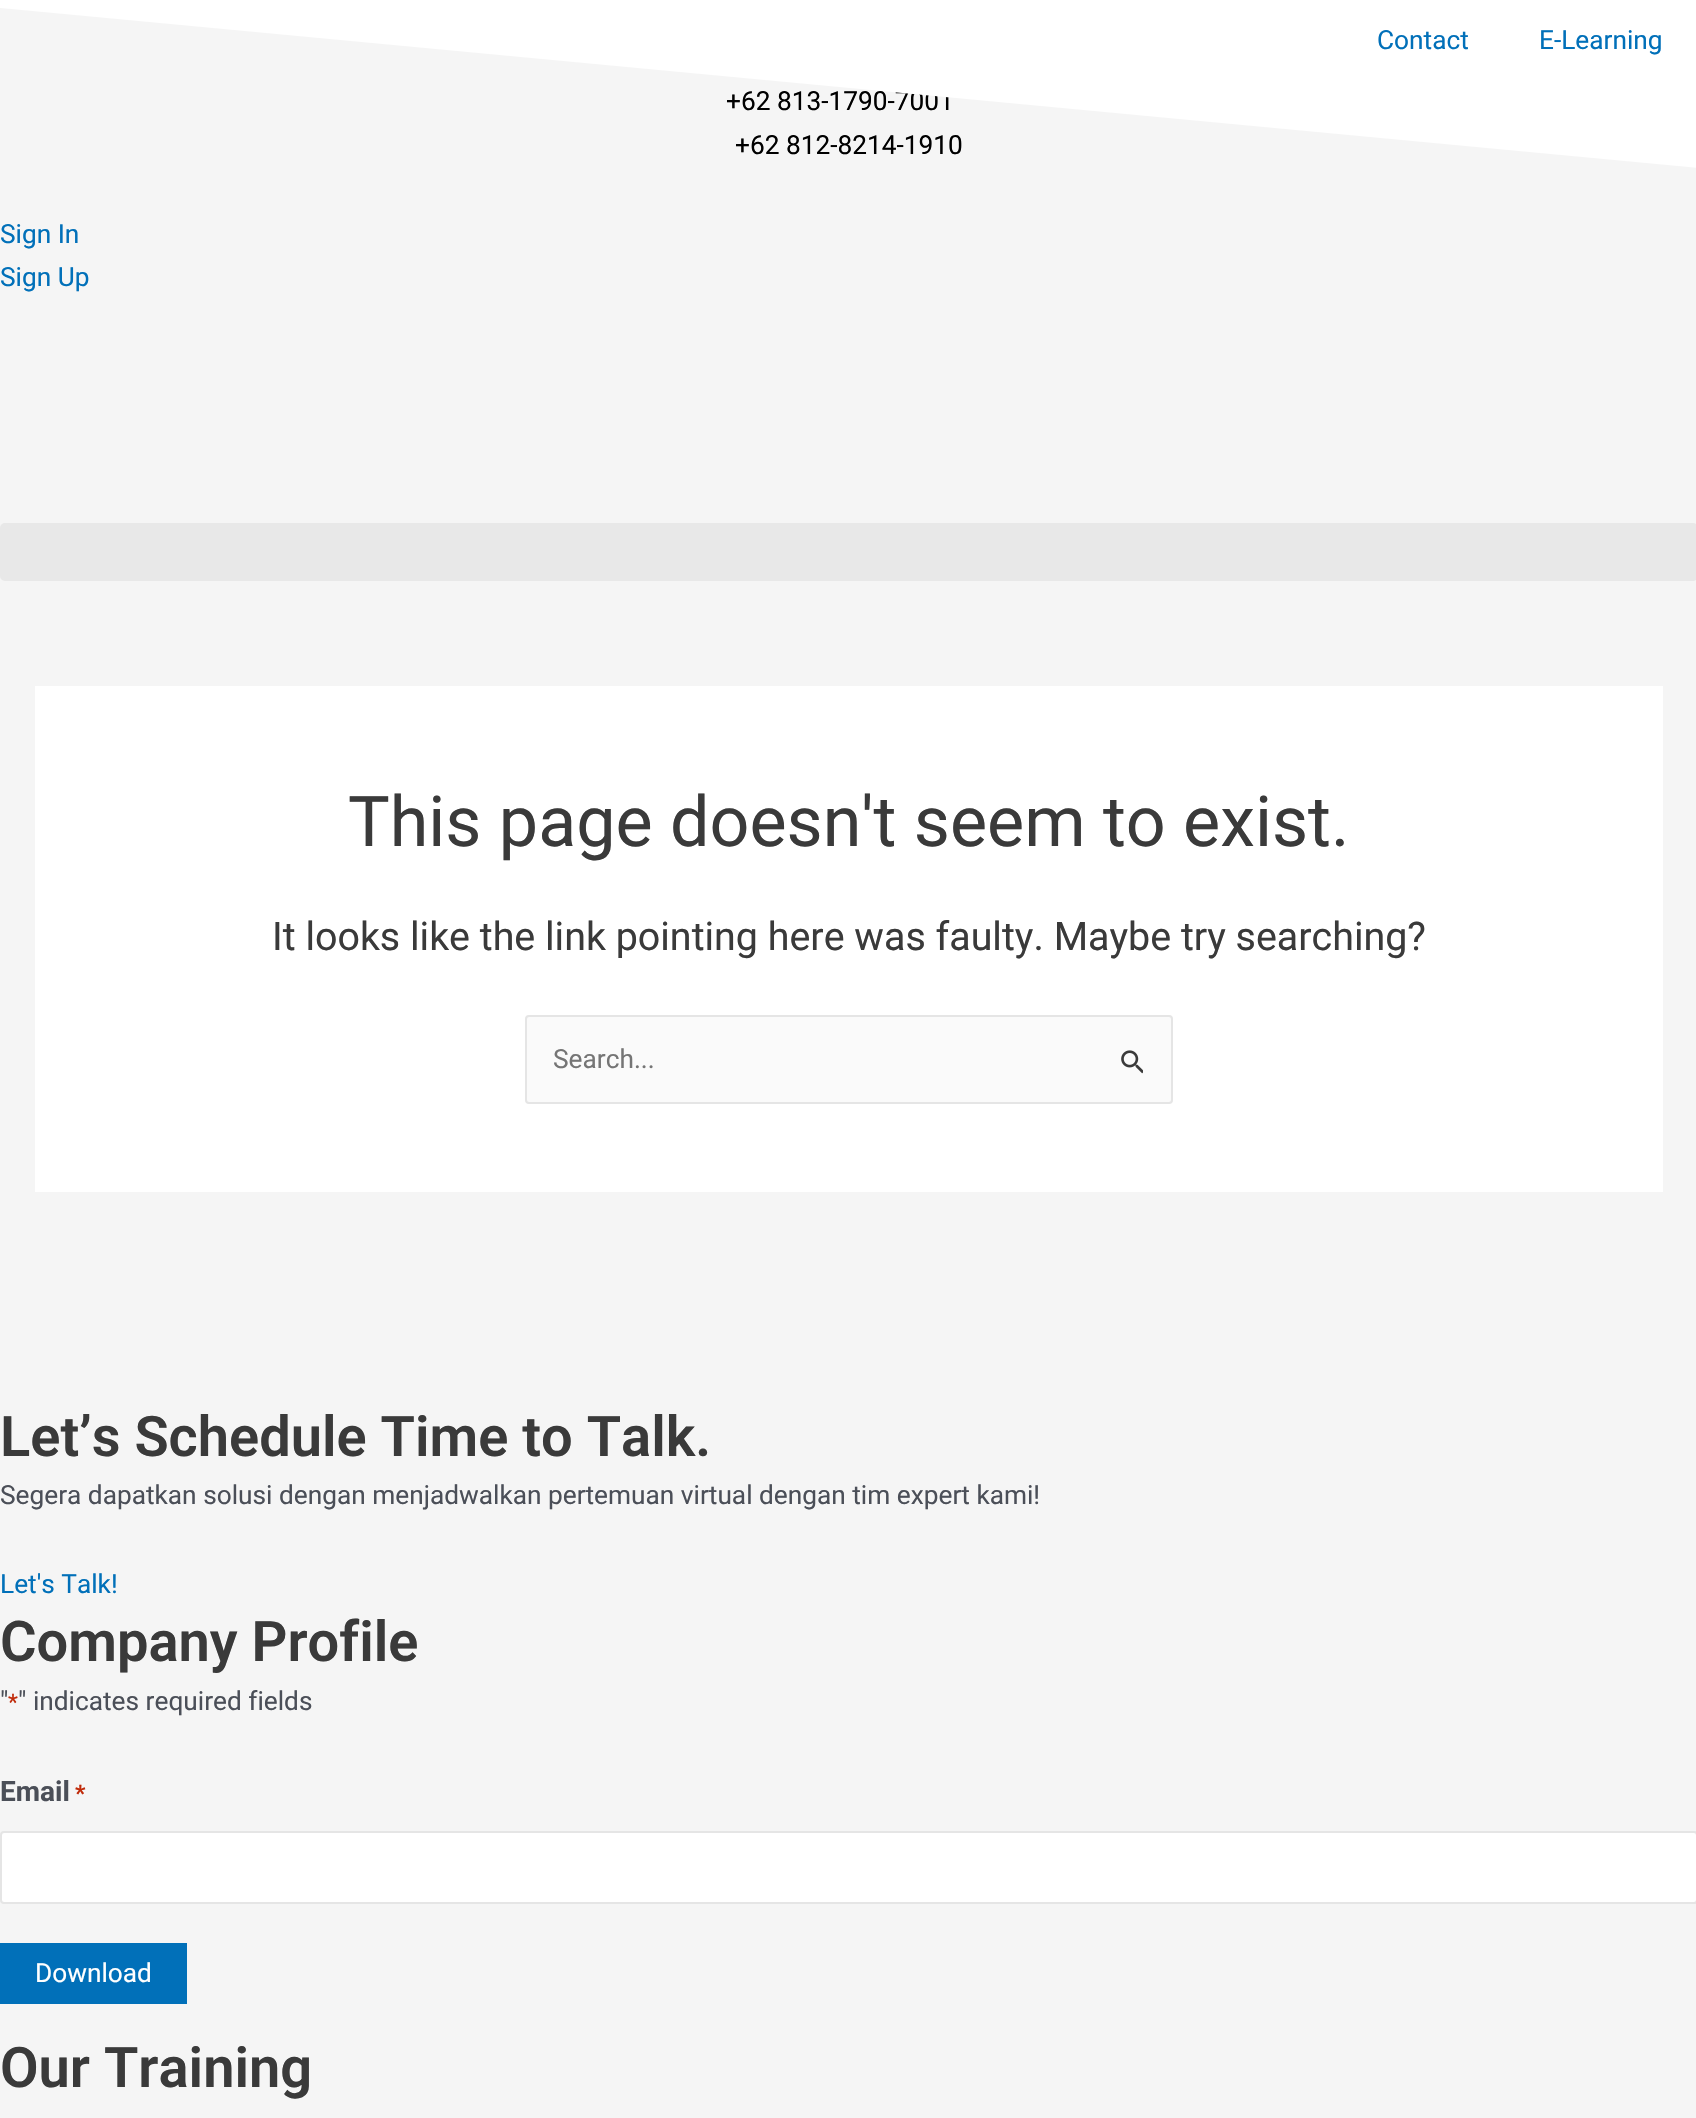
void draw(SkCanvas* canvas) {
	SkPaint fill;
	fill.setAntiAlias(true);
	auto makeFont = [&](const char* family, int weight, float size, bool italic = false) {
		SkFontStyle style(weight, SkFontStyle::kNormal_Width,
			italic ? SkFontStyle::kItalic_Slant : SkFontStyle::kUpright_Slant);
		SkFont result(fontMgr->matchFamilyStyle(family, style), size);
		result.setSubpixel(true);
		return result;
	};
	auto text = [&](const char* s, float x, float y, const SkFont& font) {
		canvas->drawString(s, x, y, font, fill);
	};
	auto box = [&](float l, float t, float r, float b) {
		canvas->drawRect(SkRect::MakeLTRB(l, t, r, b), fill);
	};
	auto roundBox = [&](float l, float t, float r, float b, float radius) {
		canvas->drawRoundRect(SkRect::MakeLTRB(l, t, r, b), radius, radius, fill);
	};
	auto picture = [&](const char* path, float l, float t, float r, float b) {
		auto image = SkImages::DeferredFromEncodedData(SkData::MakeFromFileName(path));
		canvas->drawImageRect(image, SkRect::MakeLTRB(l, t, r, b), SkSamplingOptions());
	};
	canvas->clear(0xFFF5F5F5);
	fill.setColor(0xFFE8E8E8);
	roundBox(0, 523, 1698, 581, 5);
	fill.setColor(0xFFFFFFFF);
	box(35, 686, 1663, 1192);
	fill.setColor(0xFFFAFAFA);
	canvas->drawRoundRect(SkRect::MakeLTRB(526, 1016, 1172, 1103), 3, 3, fill);
	fill.setStyle(SkPaint::kStroke_Style);
	fill.setStrokeWidth(2);
	fill.setColor(0xFFE5E5E5);
	canvas->drawRoundRect(SkRect::MakeLTRB(526, 1016, 1172, 1103), 3, 3, fill);
	picture("image0.png", 1121, 1050, 1143, 1074);
	fill.setStyle(SkPaint::kFill_Style);
	fill.setColor(0xFFFFFFFF);
	canvas->drawRoundRect(SkRect::MakeLTRB(1, 1832, 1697, 1903), 3, 3, fill);
	fill.setStyle(SkPaint::kStroke_Style);
	fill.setColor(0xFFE5E5E5);
	canvas->drawRoundRect(SkRect::MakeLTRB(1, 1832, 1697, 1903), 3, 3, fill);
	fill.setStyle(SkPaint::kFill_Style);
	fill.setColor(0xFF0170B9);
	box(0, 1943, 187, 2004);
	auto font1 = makeFont("Roboto", 400, 26.25f);
	fill.setColor(0xFF000000);
	text("+62 813-1790-7001", 726, 110, font1);
	text("+62 812-8214-1910", 735, 154, font1);
	fill.setColor(0xFF0170B9);
	text("Sign In", 0, 243, font1);
	text("Sign Up", 0, 286, font1);
	auto font2 = makeFont("Roboto", 400, 70);
	fill.setColor(0xFF3A3A3A);
	text("This page doesn't seem to exist.", 348, 846, font2);
	auto font3 = makeFont("Roboto", 400, 39.4f);
	text("It looks like the link pointing here was faulty. Maybe try searching?", 272, 950, font3);
	fill.setColor(0xFF757575);
	text("Search...", 553, 1068, font1);
	auto font4 = makeFont("Roboto", 600, 56);
	fill.setColor(0xFF3A3A3A);
	text("Let’s Schedule Time to Talk.", 0, 1456, font4);
	fill.setColor(0xFF4B4F58);
	text("Segera dapatkan solusi dengan menjadwalkan pertemuan virtual dengan tim expert kami!", 0, 1504, font1);
	fill.setColor(0xFF0170B9);
	text("Let's Talk!", 0, 1593, font1);
	fill.setColor(0xFFFFFFFF);
	canvas->drawPath(SkPathBuilder().moveTo(-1, 8).lineTo(-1, -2).lineTo(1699, -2).lineTo(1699, 168).close().detach(), fill);
	fill.setColor(0xFF0170B9);
	text("E-Learning", 1539, 49, font1);
	text("Contact", 1377, 49, font1);
	fill.setColor(0xFF3A3A3A);
	text("Company Profile", 0, 1661, font4);
	fill.setColor(0xFF4B4F58);
	text("\"", 0, 1710, font1);
	auto font5 = makeFont("Roboto", 400, 23);
	fill.setColor(0xFFC02B0A);
	text("*", 8, 1710, font5);
	fill.setColor(0xFF4B4F58);
	text("\" indicates required fields", 18, 1710, font1);
	auto font6 = makeFont("Roboto", 700, 28);
	text("Email", 0, 1801, font6);
	auto font7 = makeFont("Roboto", 700, 23);
	fill.setColor(0xFFC02B0A);
	text("*", 75, 1801, font7);
	fill.setColor(0xFFFFFFFF);
	text("Download", 35, 1982, font1);
	fill.setColor(0xFF3A3A3A);
	text("Our Training", 0, 2087, font4);
}
